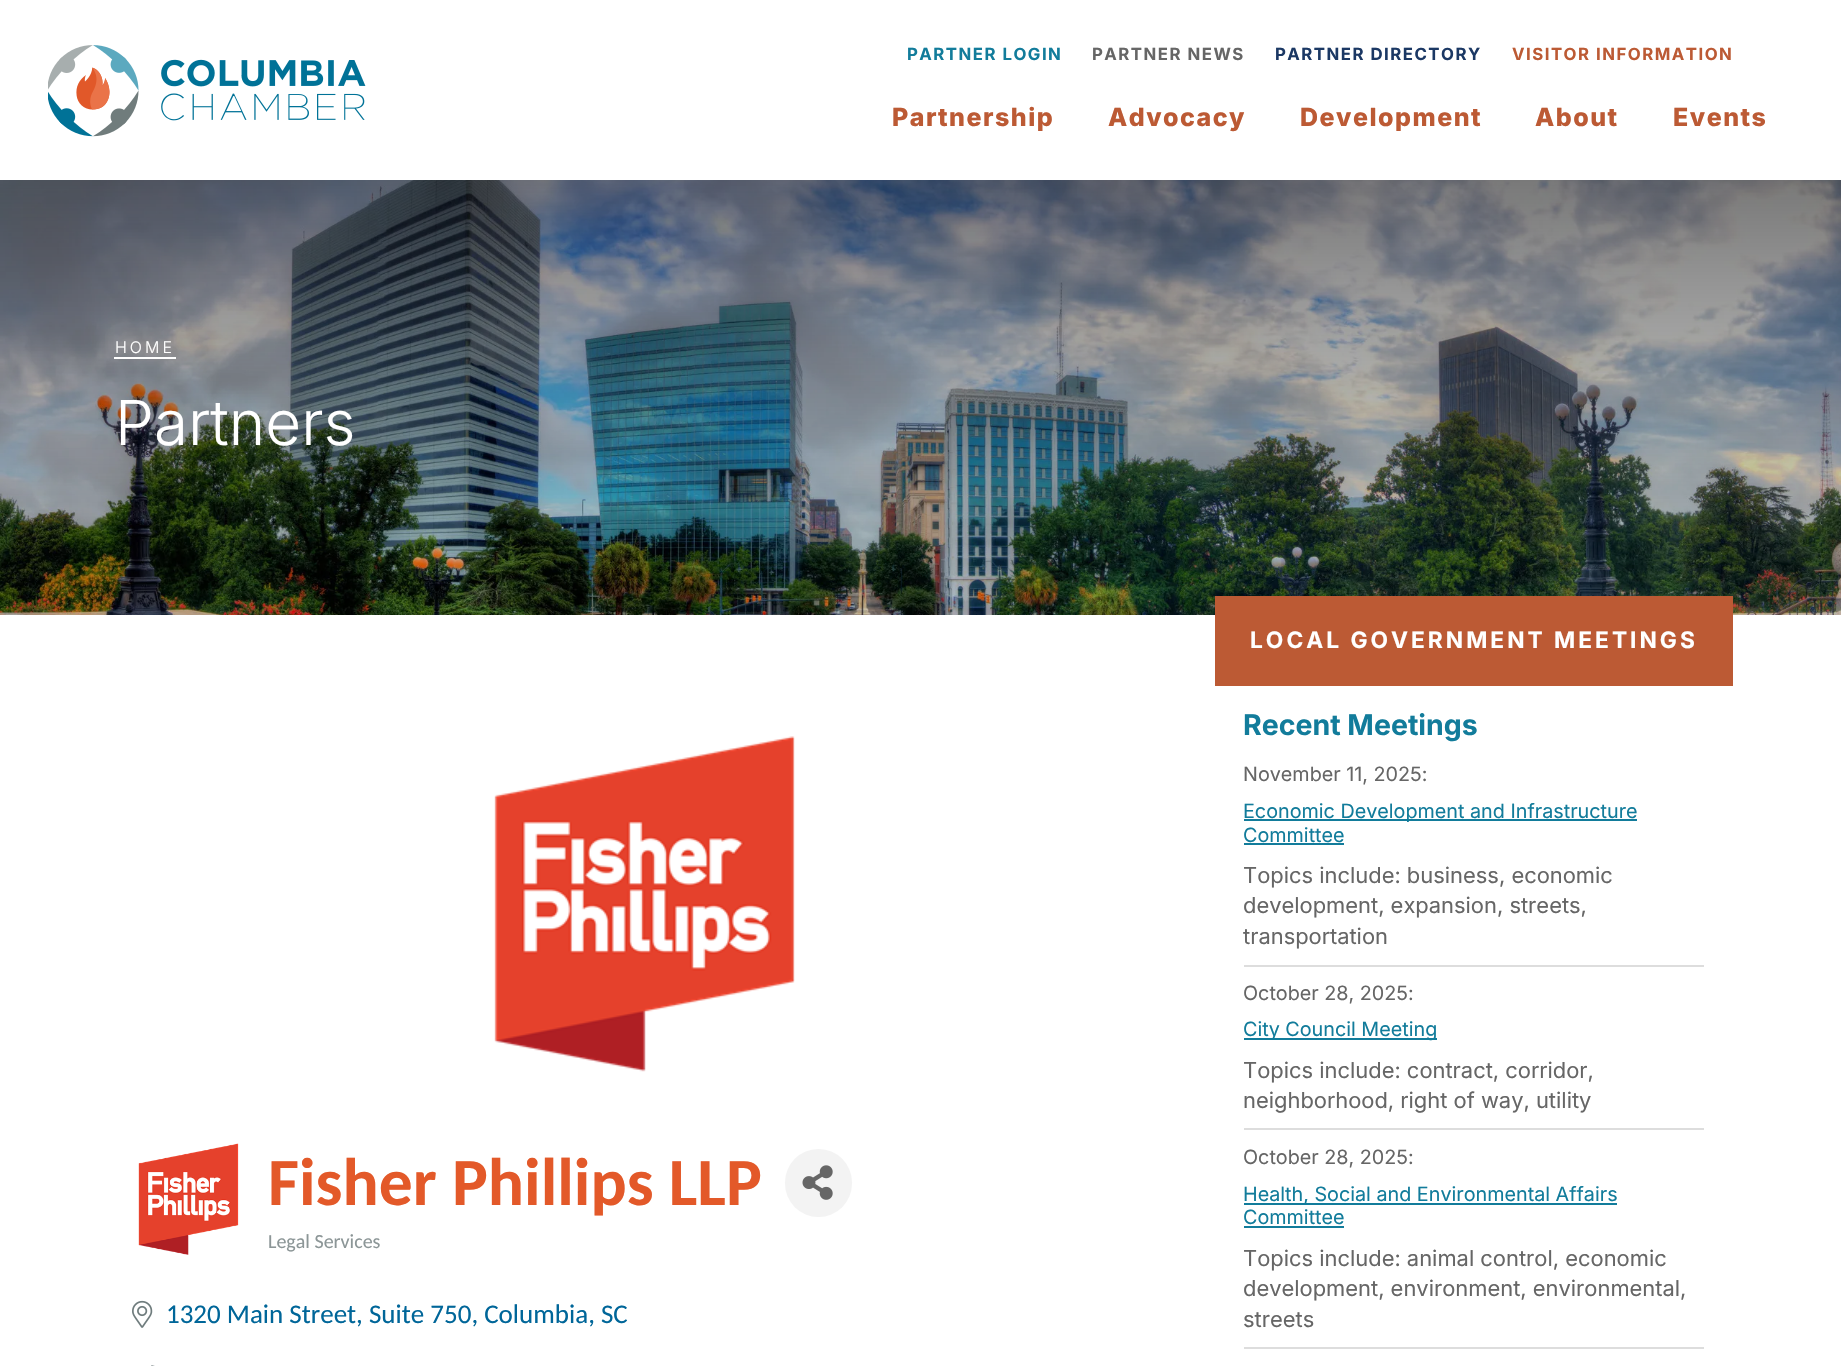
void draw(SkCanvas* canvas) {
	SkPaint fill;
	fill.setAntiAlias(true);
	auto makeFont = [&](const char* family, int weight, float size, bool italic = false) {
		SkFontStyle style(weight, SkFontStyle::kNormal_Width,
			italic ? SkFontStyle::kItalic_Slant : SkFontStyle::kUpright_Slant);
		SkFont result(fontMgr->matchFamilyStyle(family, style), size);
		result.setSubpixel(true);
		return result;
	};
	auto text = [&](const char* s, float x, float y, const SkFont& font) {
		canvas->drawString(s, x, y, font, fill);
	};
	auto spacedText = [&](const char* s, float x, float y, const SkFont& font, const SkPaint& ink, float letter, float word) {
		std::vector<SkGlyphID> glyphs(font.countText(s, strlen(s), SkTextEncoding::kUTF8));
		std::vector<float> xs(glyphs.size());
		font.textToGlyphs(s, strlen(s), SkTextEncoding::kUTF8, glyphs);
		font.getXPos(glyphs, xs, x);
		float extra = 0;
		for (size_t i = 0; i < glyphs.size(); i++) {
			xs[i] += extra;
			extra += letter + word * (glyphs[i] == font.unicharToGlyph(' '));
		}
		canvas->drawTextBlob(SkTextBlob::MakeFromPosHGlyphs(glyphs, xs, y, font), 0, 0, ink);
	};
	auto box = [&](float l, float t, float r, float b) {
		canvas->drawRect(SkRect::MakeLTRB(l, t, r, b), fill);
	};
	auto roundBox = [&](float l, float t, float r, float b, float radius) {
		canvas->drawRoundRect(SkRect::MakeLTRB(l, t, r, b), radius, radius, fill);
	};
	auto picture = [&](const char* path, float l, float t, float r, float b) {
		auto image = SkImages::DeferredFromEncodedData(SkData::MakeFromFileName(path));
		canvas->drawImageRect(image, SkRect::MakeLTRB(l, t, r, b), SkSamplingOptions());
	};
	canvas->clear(0xFFFFFFFF);
	picture("image0.png", 48, 45, 366, 137);
	picture("image1.png", 0, 180, 1841, 615);
	fill.setColor(0xFFFFFFFF);
	box(114, 357, 176, 359);
	picture("image2.png", 494, 736, 795, 1072);
	picture("image3.png", 138, 1143, 239, 1255);
	fill.setColor(0xFFF3F3F3);
	roundBox(785, 1149, 852, 1217, 33.5f);
	picture("image4.png", 802, 1165, 833, 1200);
	picture("image5.png", 132, 1300, 153, 1328);
	picture("image6.png", 151, 1365, 155, 1366);
	fill.setColor(0xFFBC5A34);
	box(1215, 596, 1733, 686);
	fill.setColor(0xFFDDDDDD);
	box(1244, 965, 1704, 967);
	fill.setColor(0xFF127C9B);
	box(1244, 819, 1637, 821);
	box(1244, 843, 1344, 845);
	fill.setColor(0xFFDDDDDD);
	box(1244, 1128, 1704, 1130);
	fill.setColor(0xFF127C9B);
	box(1244, 1038, 1437, 1040);
	fill.setColor(0xFFDDDDDD);
	box(1244, 1347, 1704, 1349);
	fill.setColor(0xFF127C9B);
	box(1244, 1203, 1617, 1205);
	box(1244, 1226, 1344, 1228);
	auto font1 = makeFont("Inter", 700, 16.75f);
	spacedText("PARTNER LOGIN", 907, 60, font1, fill, 1.5f, 0);
	fill.setColor(0xFF666666);
	spacedText("PARTNER NEWS", 1092, 60, font1, fill, 1.5f, 0);
	fill.setColor(0xFF1B3864);
	spacedText("PARTNER DIRECTORY", 1275, 60, font1, fill, 1.5f, 0);
	fill.setColor(0xFFBC5A34);
	spacedText("VISITOR INFORMATION", 1512, 60, font1, fill, 1.5f, 0);
	auto font2 = makeFont("Inter", 800, 25);
	spacedText("Partnership", 892, 126, font2, fill, 1.5f, 0);
	spacedText("Advocacy", 1108, 126, font2, fill, 1.5f, 0);
	spacedText("Development", 1300, 126, font2, fill, 1.5f, 0);
	spacedText("About", 1535, 126, font2, fill, 1.5f, 0);
	spacedText("Events", 1673, 126, font2, fill, 1.5f, 0);
	auto font3 = makeFont("Inter", 300, 16);
	fill.setColor(0xFFFFFFFF);
	spacedText("HOME", 115, 353, font3, fill, 3, 0);
	auto font4 = makeFont("Inter", 300, 62);
	text("Partners", 115, 445, font4);
	auto font5 = makeFont("Carlito", 700, 67.5f);
	fill.setColor(0xFFE35929);
	text("Fisher Phillips LLP", 268, 1205, font5);
	auto font6 = makeFont("Carlito", 400, 20);
	fill.setColor(0xFF8C9697);
	text("Legal Services", 268, 1248, font6);
	auto font7 = makeFont("Carlito", 400, 27);
	fill.setColor(0xFF006699);
	text("1320 Main Street, Suite 750, Columbia, SC", 166, 1323, font7);
	auto font8 = makeFont("Inter", 700, 22.75f);
	fill.setColor(0xFFFFFFFF);
	spacedText("LOCAL GOVERNMENT MEETINGS", 1250, 648, font8, fill, 3, 0);
	auto font9 = makeFont("Inter", 700, 28.5f);
	fill.setColor(0xFF127C9B);
	text("Recent Meetings", 1243, 735, font9);
	auto font10 = makeFont("Inter", 400, 19.75f);
	fill.setColor(0xFF666666);
	text("November 11, 2025:", 1243, 781, font10);
	fill.setColor(0xFF127C9B);
	text("Economic Development and Infrastructure", 1243, 818, font10);
	text("Committee", 1243, 842, font10);
	auto font11 = makeFont("Inter", 400, 21.9f);
	fill.setColor(0xFF666666);
	text("Topics include: business, economic", 1243, 883, font11);
	text("development, expansion, streets,", 1243, 913, font11);
	text("transportation", 1243, 944, font11);
	text("October 28, 2025:", 1243, 1000, font10);
	fill.setColor(0xFF127C9B);
	text("City Council Meeting", 1243, 1036, font10);
	fill.setColor(0xFF666666);
	text("Topics include: contract, corridor,", 1243, 1078, font11);
	text("neighborhood, right of way, utility", 1243, 1108, font11);
	text("October 28, 2025:", 1243, 1164, font10);
	fill.setColor(0xFF127C9B);
	text("Health, Social and Environmental Affairs", 1243, 1201, font10);
	text("Committee", 1243, 1224, font10);
	fill.setColor(0xFF666666);
	text("Topics include: animal control, economic", 1243, 1266, font11);
	text("development, environment, environmental,", 1243, 1296, font11);
	text("streets", 1243, 1327, font11);
}
